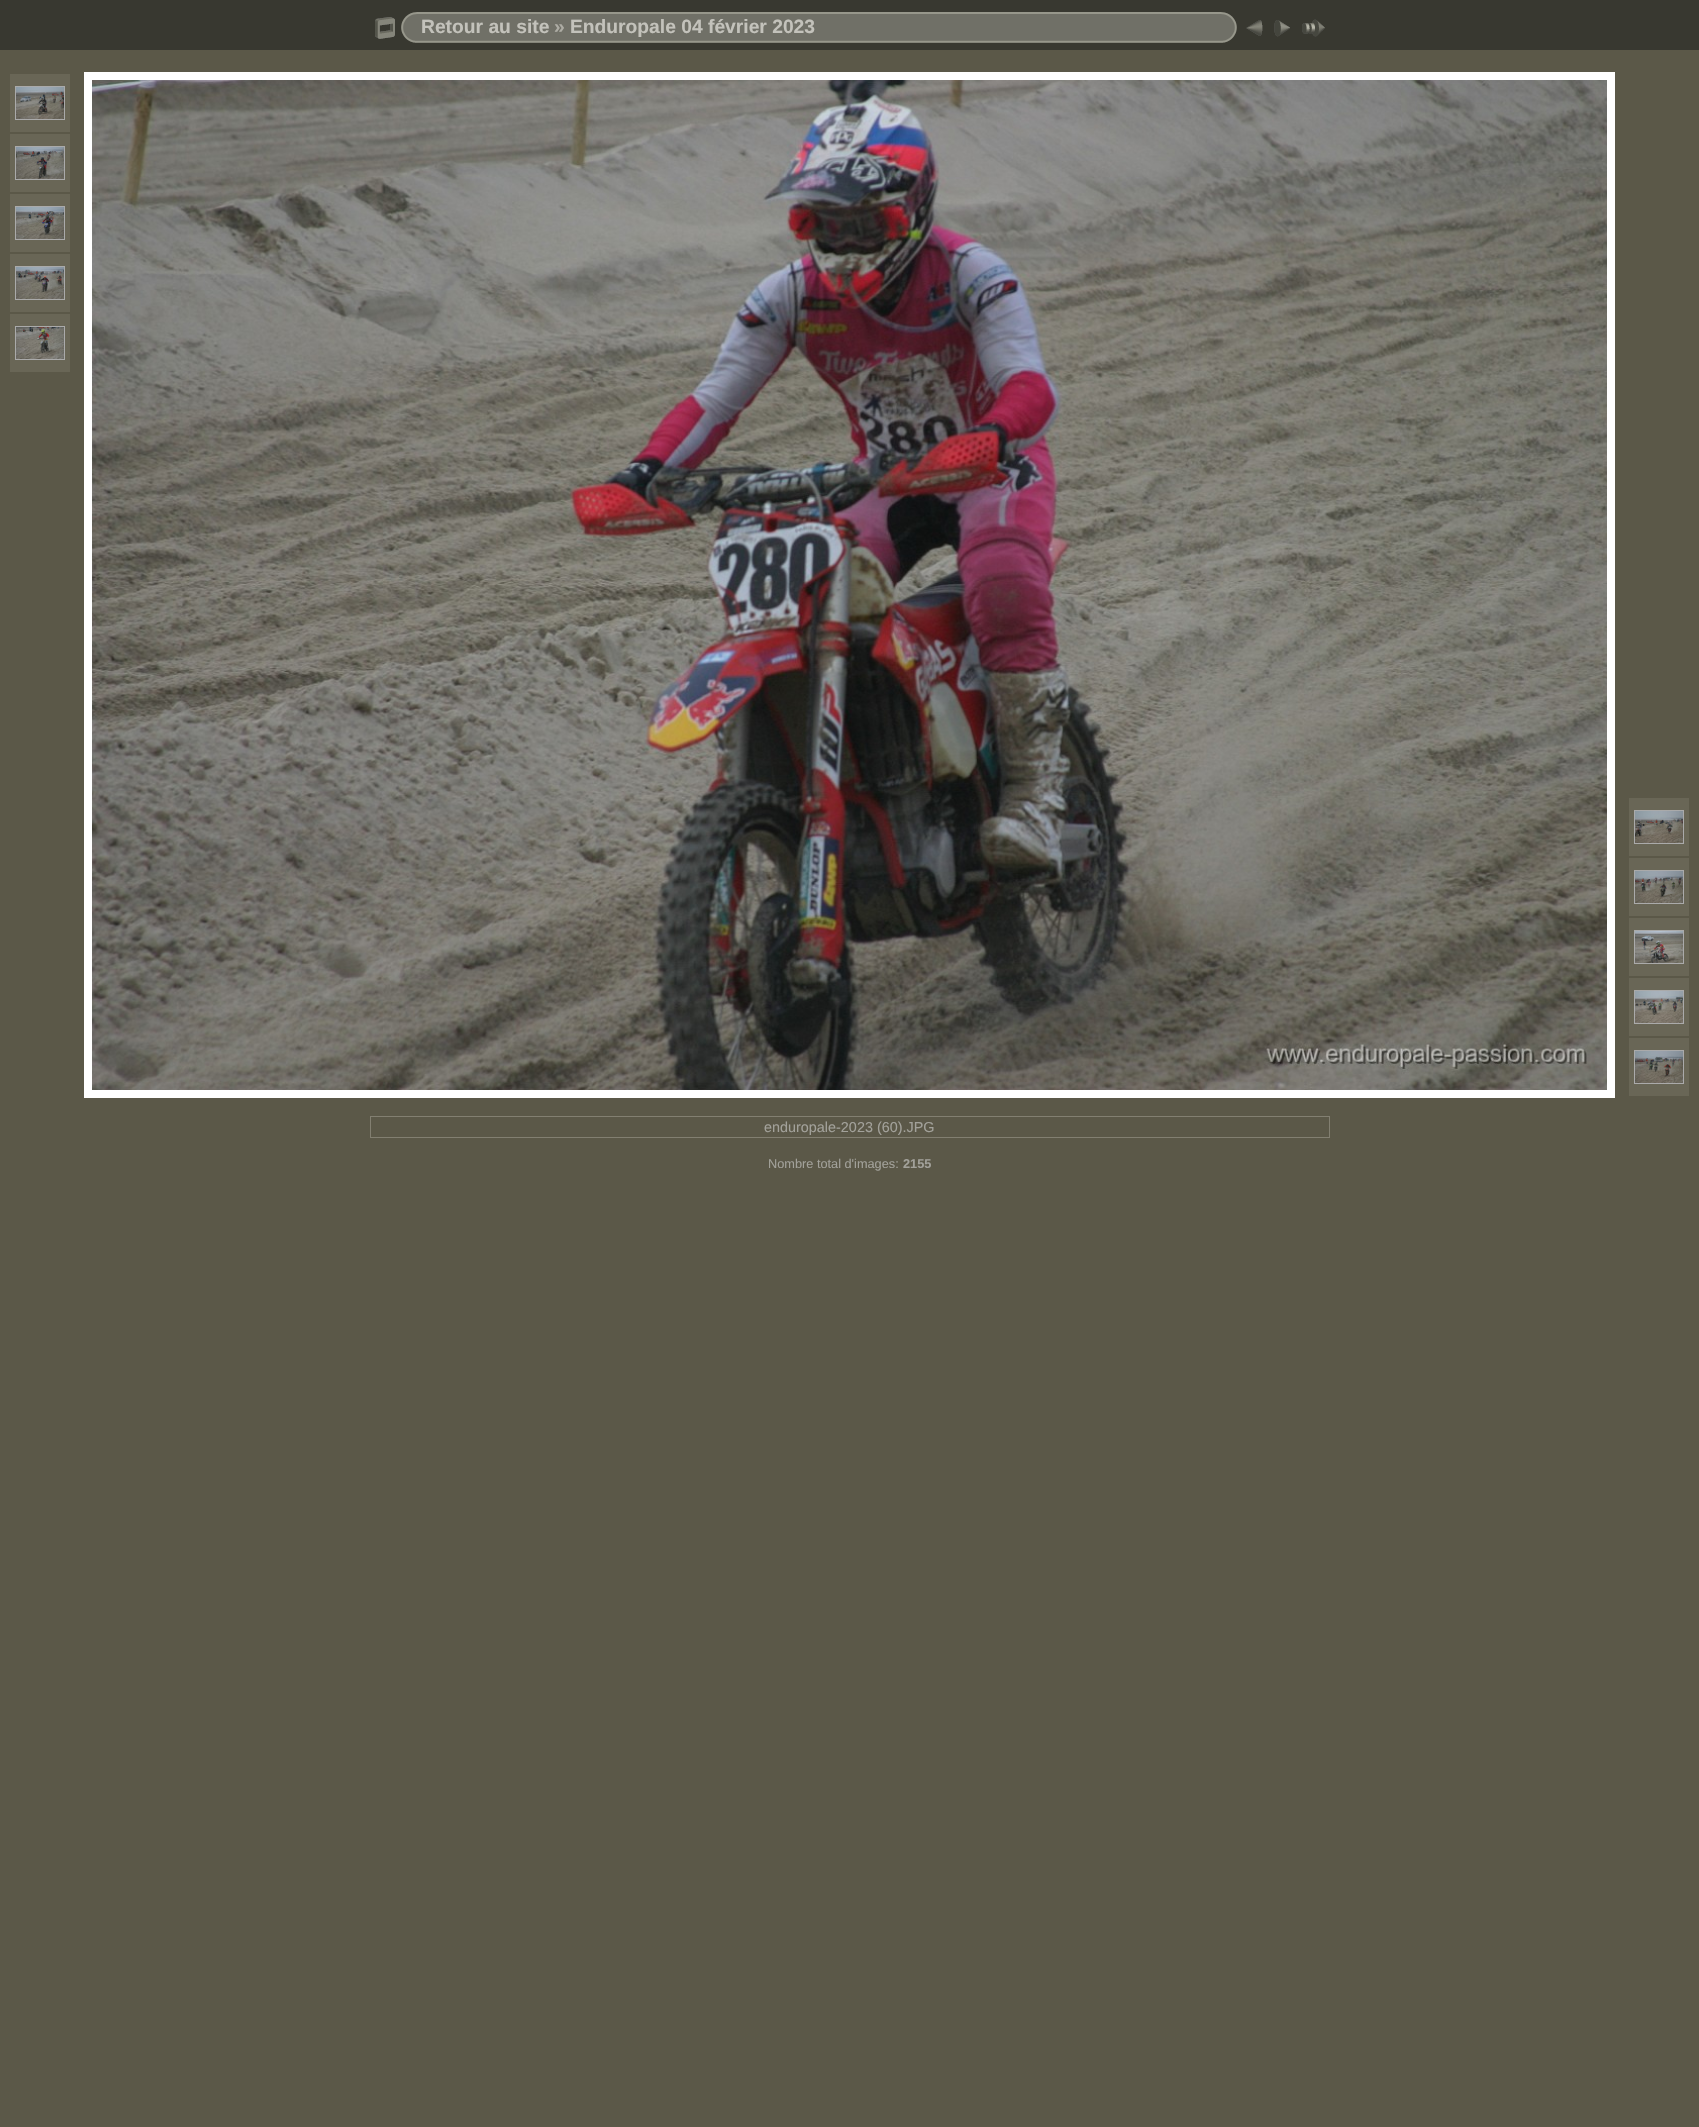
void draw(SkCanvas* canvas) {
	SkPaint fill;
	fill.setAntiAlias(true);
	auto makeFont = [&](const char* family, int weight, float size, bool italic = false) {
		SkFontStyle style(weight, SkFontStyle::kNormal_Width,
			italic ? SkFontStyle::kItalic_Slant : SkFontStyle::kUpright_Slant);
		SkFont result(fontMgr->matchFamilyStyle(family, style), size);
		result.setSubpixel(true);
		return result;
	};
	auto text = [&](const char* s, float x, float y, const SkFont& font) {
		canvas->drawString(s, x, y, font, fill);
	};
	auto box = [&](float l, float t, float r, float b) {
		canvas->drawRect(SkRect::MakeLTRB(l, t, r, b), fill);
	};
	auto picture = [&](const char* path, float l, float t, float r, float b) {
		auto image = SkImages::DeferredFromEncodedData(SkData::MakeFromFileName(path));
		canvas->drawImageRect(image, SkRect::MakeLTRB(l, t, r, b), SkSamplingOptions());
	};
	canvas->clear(0xFF5B5848);
	fill.setColor(0xFF383830);
	box(0, 0, 1699, 50);
	picture("image0.png", 375, 17, 395, 39);
	picture("image1.png", 401, 12, 421, 43);
	picture("image2.png", 421, 12, 1217, 43);
	picture("image3.png", 1217, 12, 1237, 43);
	picture("image4.png", 1246, 20, 1263, 36);
	picture("image5.png", 1274, 20, 1290, 37);
	picture("image6.png", 1302, 19, 1325, 37);
	fill.setColor(0xFF696656);
	box(10, 74, 70, 132);
	fill.setStyle(SkPaint::kStroke_Style);
	fill.setStrokeWidth(1);
	fill.setColor(0xFFAAAAAA);
	canvas->drawRect(SkRect::MakeLTRB(15.5f, 86.5f, 64.5f, 119.5f), fill);
	picture("image7.png", 16, 87, 64, 119);
	fill.setStyle(SkPaint::kFill_Style);
	fill.setColor(0xFF696656);
	box(10, 134, 70, 192);
	fill.setStyle(SkPaint::kStroke_Style);
	fill.setColor(0xFFAAAAAA);
	canvas->drawRect(SkRect::MakeLTRB(15.5f, 146.5f, 64.5f, 179.5f), fill);
	picture("image8.png", 16, 147, 64, 179);
	fill.setStyle(SkPaint::kFill_Style);
	fill.setColor(0xFF696656);
	box(10, 194, 70, 252);
	fill.setStyle(SkPaint::kStroke_Style);
	fill.setColor(0xFFAAAAAA);
	canvas->drawRect(SkRect::MakeLTRB(15.5f, 206.5f, 64.5f, 239.5f), fill);
	picture("image9.png", 16, 207, 64, 239);
	fill.setStyle(SkPaint::kFill_Style);
	fill.setColor(0xFF696656);
	box(10, 254, 70, 312);
	fill.setStyle(SkPaint::kStroke_Style);
	fill.setColor(0xFFAAAAAA);
	canvas->drawRect(SkRect::MakeLTRB(15.5f, 266.5f, 64.5f, 299.5f), fill);
	picture("image10.png", 16, 267, 64, 299);
	fill.setStyle(SkPaint::kFill_Style);
	fill.setColor(0xFF696656);
	box(10, 314, 70, 372);
	fill.setStyle(SkPaint::kStroke_Style);
	fill.setColor(0xFFAAAAAA);
	canvas->drawRect(SkRect::MakeLTRB(15.5f, 326.5f, 64.5f, 359.5f), fill);
	picture("image11.png", 16, 327, 64, 359);
	fill.setStrokeWidth(8);
	fill.setColor(0xFFFFFFFF);
	canvas->drawRect(SkRect::MakeLTRB(88, 76, 1611, 1094), fill);
	picture("image12.png", 92, 80, 1607, 1090);
	fill.setStyle(SkPaint::kFill_Style);
	fill.setColor(0xFF696656);
	box(1629, 798, 1689, 856);
	fill.setStyle(SkPaint::kStroke_Style);
	fill.setStrokeWidth(1);
	fill.setColor(0xFFAAAAAA);
	canvas->drawRect(SkRect::MakeLTRB(1634.5f, 810.5f, 1683.5f, 843.5f), fill);
	picture("image13.png", 1635, 811, 1683, 843);
	fill.setStyle(SkPaint::kFill_Style);
	fill.setColor(0xFF696656);
	box(1629, 858, 1689, 916);
	fill.setStyle(SkPaint::kStroke_Style);
	fill.setColor(0xFFAAAAAA);
	canvas->drawRect(SkRect::MakeLTRB(1634.5f, 870.5f, 1683.5f, 903.5f), fill);
	picture("image14.png", 1635, 871, 1683, 903);
	fill.setStyle(SkPaint::kFill_Style);
	fill.setColor(0xFF696656);
	box(1629, 918, 1689, 976);
	fill.setStyle(SkPaint::kStroke_Style);
	fill.setColor(0xFFAAAAAA);
	canvas->drawRect(SkRect::MakeLTRB(1634.5f, 930.5f, 1683.5f, 963.5f), fill);
	picture("image15.png", 1635, 931, 1683, 963);
	fill.setStyle(SkPaint::kFill_Style);
	fill.setColor(0xFF696656);
	box(1629, 978, 1689, 1036);
	fill.setStyle(SkPaint::kStroke_Style);
	fill.setColor(0xFFAAAAAA);
	canvas->drawRect(SkRect::MakeLTRB(1634.5f, 990.5f, 1683.5f, 1023.5f), fill);
	picture("image16.png", 1635, 991, 1683, 1023);
	fill.setStyle(SkPaint::kFill_Style);
	fill.setColor(0xFF696656);
	box(1629, 1038, 1689, 1096);
	fill.setStyle(SkPaint::kStroke_Style);
	fill.setColor(0xFFAAAAAA);
	canvas->drawRect(SkRect::MakeLTRB(1634.5f, 1050.5f, 1683.5f, 1083.5f), fill);
	picture("image17.png", 1635, 1051, 1683, 1083);
	fill.setStyle(SkPaint::kFill_Style);
	fill.setColor(0xFF827F71);
	box(370, 1116, 1330, 1117);
	box(1329, 1116, 1330, 1138);
	box(370, 1137, 1330, 1138);
	box(370, 1116, 371, 1138);
	auto font1 = makeFont("Liberation Sans", 700, 19.25f);
	fill.setColor(0xFFC3C2BB);
	text("Retour au site", 421, 33, font1);
	fill.setColor(0xFFADACA4);
	text("»", 554, 33, font1);
	fill.setColor(0xFFC3C2BB);
	text("Enduropale 04 février 2023", 570, 33, font1);
	auto font2 = makeFont("Liberation Sans", 400, 14.4f);
	fill.setColor(0xFFA2A19A);
	text("enduropale-2023 (60).JPG", 764, 1132, font2);
	auto font3 = makeFont("Liberation Sans", 400, 12.75f);
	text("Nombre total d'images:", 768, 1168, font3);
	auto font4 = makeFont("Liberation Sans", 700, 12.75f);
	text("2155", 903, 1168, font4);
}
